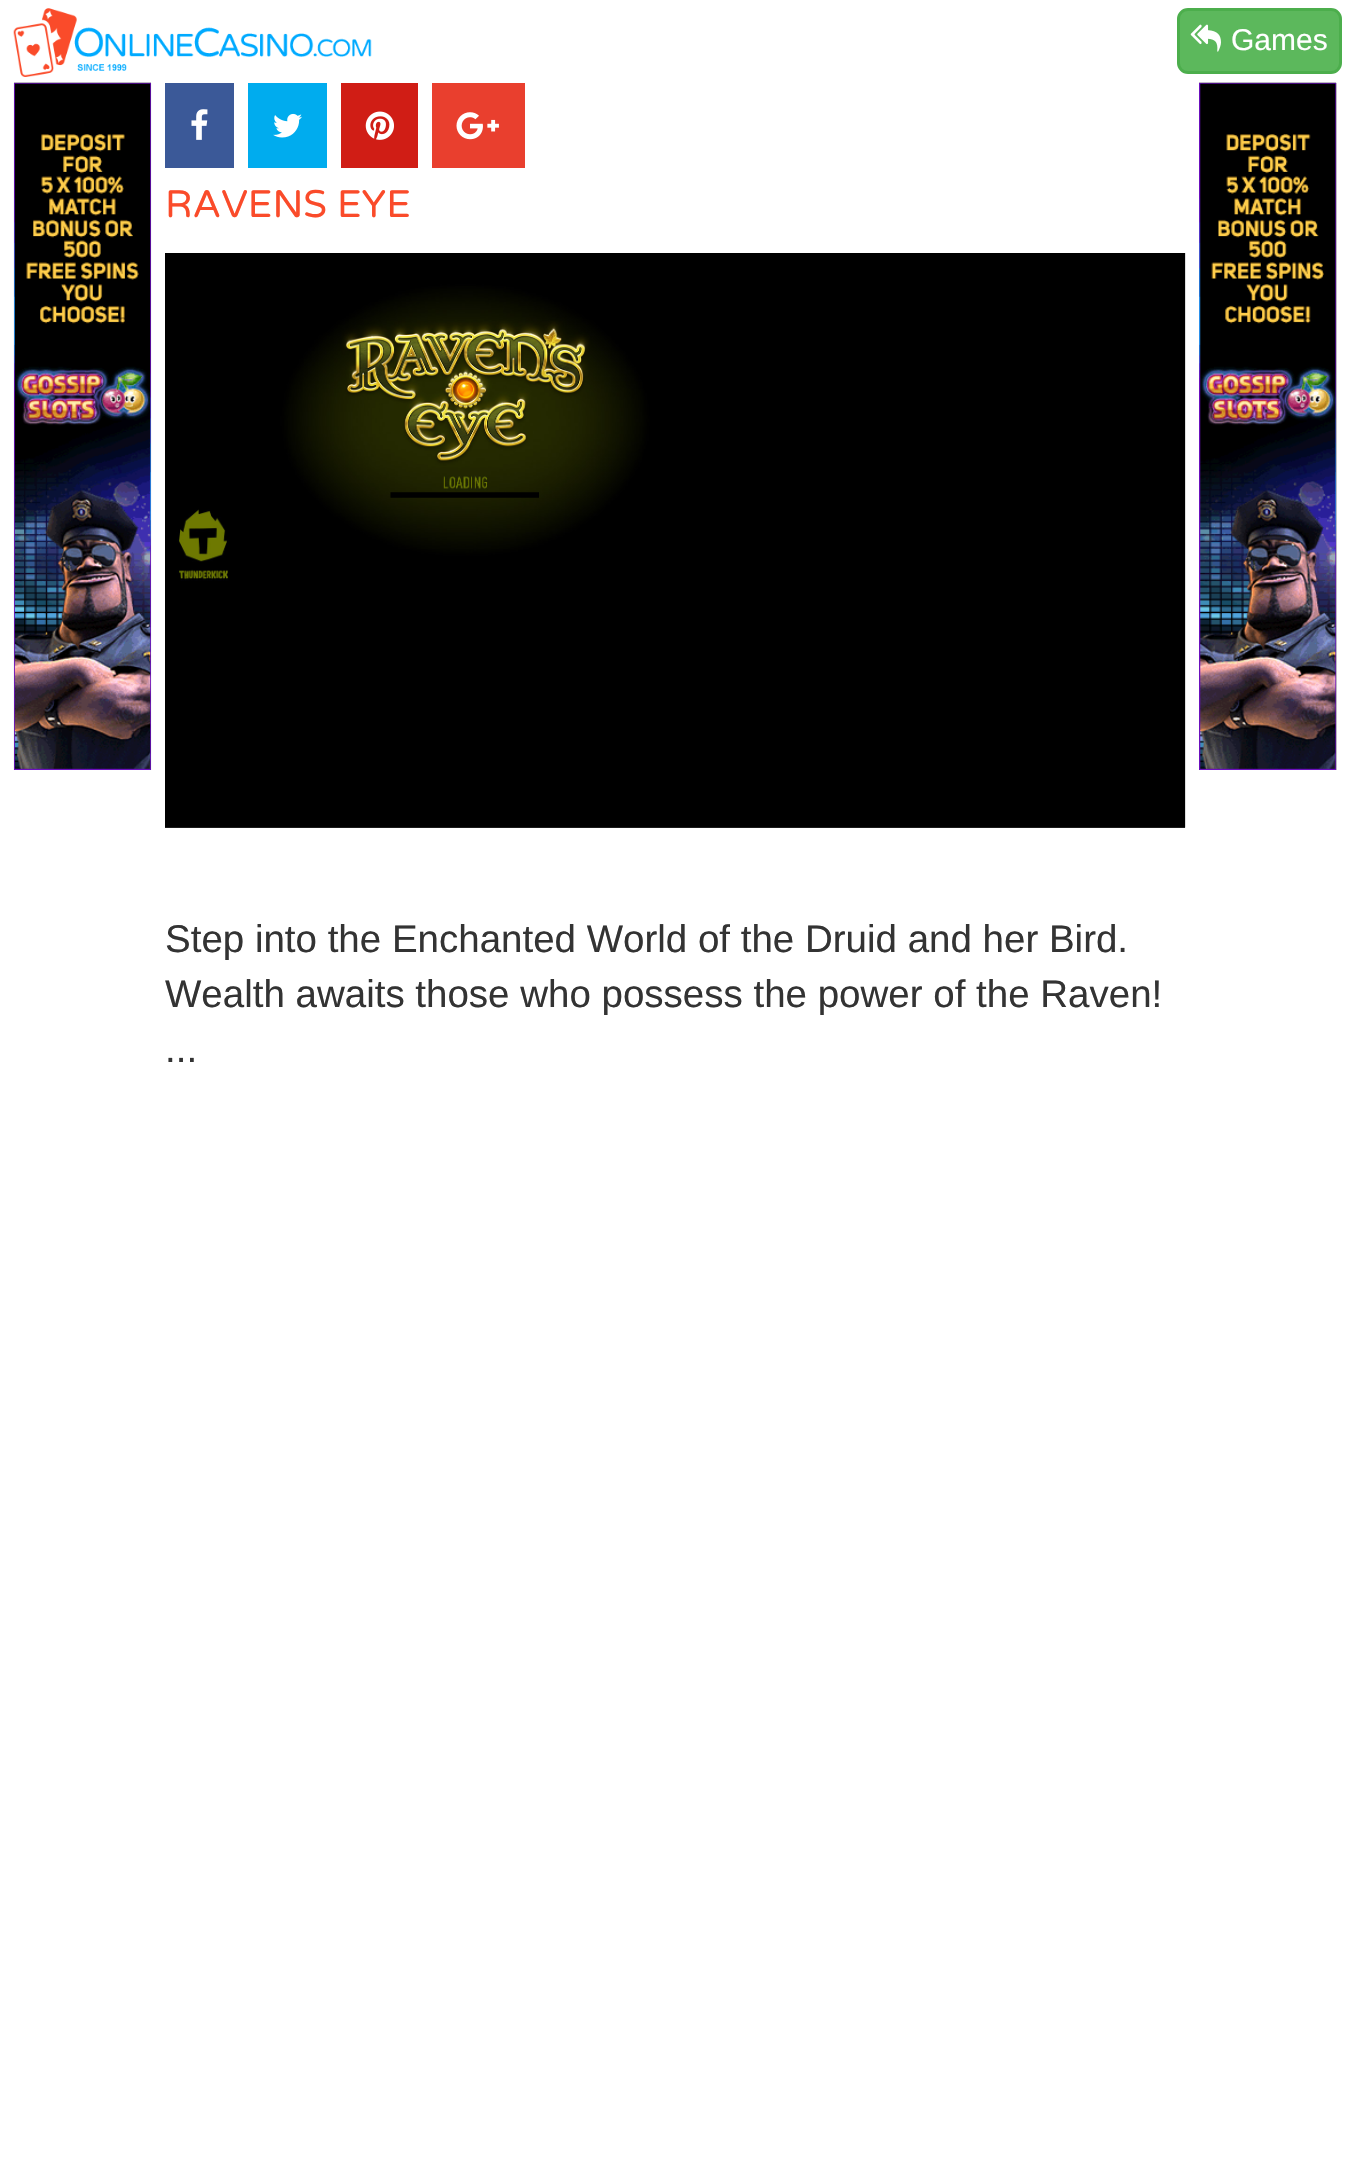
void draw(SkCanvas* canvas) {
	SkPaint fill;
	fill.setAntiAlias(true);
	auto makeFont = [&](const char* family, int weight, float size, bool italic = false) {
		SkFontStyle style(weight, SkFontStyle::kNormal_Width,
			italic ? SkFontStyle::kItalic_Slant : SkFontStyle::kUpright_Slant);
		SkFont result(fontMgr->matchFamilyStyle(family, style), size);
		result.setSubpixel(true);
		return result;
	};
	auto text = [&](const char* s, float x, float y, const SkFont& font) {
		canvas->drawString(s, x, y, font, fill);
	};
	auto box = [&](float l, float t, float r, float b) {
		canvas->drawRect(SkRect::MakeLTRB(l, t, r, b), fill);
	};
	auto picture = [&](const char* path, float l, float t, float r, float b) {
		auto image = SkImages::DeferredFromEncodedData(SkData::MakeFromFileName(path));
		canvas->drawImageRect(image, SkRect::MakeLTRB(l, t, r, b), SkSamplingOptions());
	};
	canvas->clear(0xFFFFFFFF);
	picture("image0.png", 13, 8, 372, 77);
	fill.setColor(0xFF5CB85C);
	canvas->drawRoundRect(SkRect::MakeLTRB(1178.5f, 9.5f, 1340.5f, 72.5f), 9.5f, 9.5f, fill);
	fill.setStyle(SkPaint::kStroke_Style);
	fill.setStrokeWidth(3);
	fill.setColor(0xFF4CAE4C);
	canvas->drawRoundRect(SkRect::MakeLTRB(1178.5f, 9.5f, 1340.5f, 72.5f), 9.5f, 9.5f, fill);
	picture("image1.png", 1190, 24, 1221, 52);
	picture("image2.png", 13, 82, 152, 770);
	fill.setStyle(SkPaint::kFill_Style);
	fill.setColor(0xFF3B5998);
	box(165, 83, 234, 168);
	picture("image3.png", 191, 109, 208, 140);
	fill.setColor(0xFF00ACEE);
	box(248, 83, 327, 168);
	picture("image4.png", 273, 113, 302, 138);
	fill.setColor(0xFFD01D15);
	box(341, 83, 418, 168);
	picture("image5.png", 365, 111, 394, 140);
	fill.setColor(0xFFE93F2E);
	box(432, 83, 525, 168);
	picture("image6.png", 456, 112, 499, 140);
	picture("image7.png", 165, 253, 1186, 828);
	picture("image8.png", 1199, 82, 1337, 770);
	auto font1 = makeFont("Liberation Sans", 400, 30);
	fill.setColor(0xFFFFFFFF);
	text("Games", 1231, 50, font1);
	auto font2 = makeFont("Varela Round", 400, 38.5f);
	fill.setColor(0xFFFA4B2A);
	text("RAVENS EYE", 165, 217, font2);
	auto font3 = makeFont("Liberation Sans", 400, 38.5f);
	fill.setColor(0xFF333333);
	text("Step into the Enchanted World of the Druid and her Bird.", 165, 952, font3);
	text("Wealth awaits those who possess the power of the Raven!", 165, 1007, font3);
	text("...", 165, 1062, font3);
}
